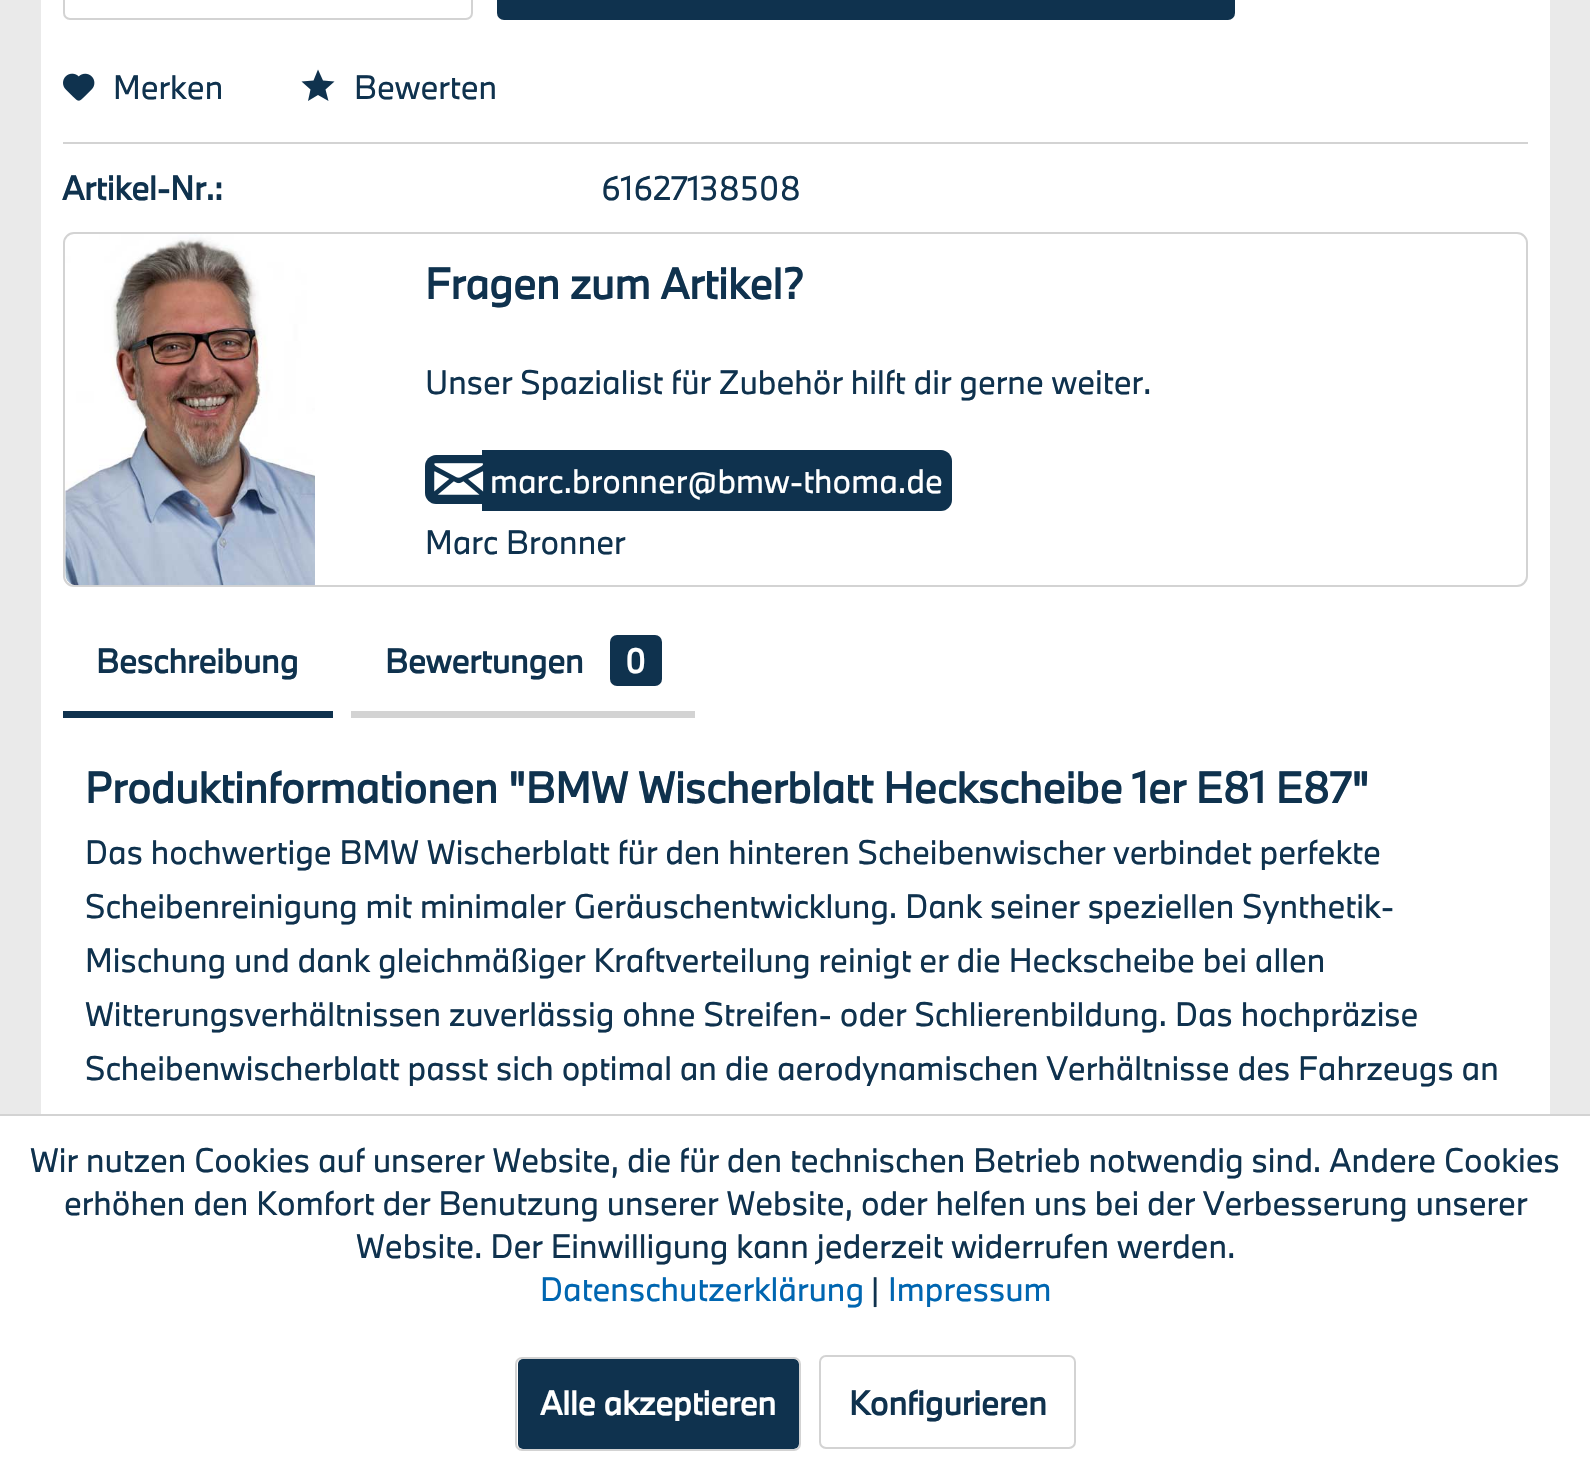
void draw(SkCanvas* canvas) {
	SkPaint fill;
	fill.setAntiAlias(true);
	auto makeFont = [&](const char* family, int weight, float size, bool italic = false) {
		SkFontStyle style(weight, SkFontStyle::kNormal_Width,
			italic ? SkFontStyle::kItalic_Slant : SkFontStyle::kUpright_Slant);
		SkFont result(fontMgr->matchFamilyStyle(family, style), size);
		result.setSubpixel(true);
		return result;
	};
	auto text = [&](const char* s, float x, float y, const SkFont& font) {
		canvas->drawString(s, x, y, font, fill);
	};
	auto box = [&](float l, float t, float r, float b) {
		canvas->drawRect(SkRect::MakeLTRB(l, t, r, b), fill);
	};
	auto roundBox = [&](float l, float t, float r, float b, float radius) {
		canvas->drawRoundRect(SkRect::MakeLTRB(l, t, r, b), radius, radius, fill);
	};
	auto picture = [&](const char* path, float l, float t, float r, float b) {
		auto image = SkImages::DeferredFromEncodedData(SkData::MakeFromFileName(path));
		canvas->drawImageRect(image, SkRect::MakeLTRB(l, t, r, b), SkSamplingOptions());
	};
	canvas->clear(0xFFEAEAEA);
	fill.setColor(0xFFFFFFFF);
	box(41, 0, 1550, 1114);
	fill.setStyle(SkPaint::kStroke_Style);
	fill.setStrokeWidth(2);
	fill.setColor(0xFFD3D3D3);
	canvas->drawRoundRect(SkRect::MakeLTRB(64, -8, 472, 19), 6, 6, fill);
	fill.setStyle(SkPaint::kFill_Style);
	fill.setColor(0xFF0F324E);
	roundBox(497, -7, 1235, 20, 7);
	fill.setColor(0xFFD3D3D3);
	box(63, 142, 1528, 144);
	picture("image0.png", 63, 73, 95, 101);
	fill.setColor(0xFF0F324E);
	canvas->drawPath(SkPathBuilder().moveTo(318, 69.5f).lineTo(313.5f, 80.5f).lineTo(301.5f, 81.5f).lineTo(310.5f, 89.5f).lineTo(308, 101).lineTo(318, 95).lineTo(328.5f, 101).lineTo(325.5f, 89.5f).lineTo(334.5f, 81.5f).lineTo(323, 80.5f).close().detach(), fill);
	fill.setStyle(SkPaint::kStroke_Style);
	fill.setColor(0xFFD3D3D3);
	canvas->drawRoundRect(SkRect::MakeLTRB(64, 233, 1527, 586), 10, 10, fill);
	picture("image1.png", 65, 234, 315, 586);
	fill.setStyle(SkPaint::kFill_Style);
	fill.setColor(0xFF0F324E);
	canvas->drawPath(SkPathBuilder().moveTo(436, 455).lineTo(482, 455).lineTo(482, 504).lineTo(436, 504).cubicTo(430, 504, 425, 499, 425, 493).lineTo(425, 466).cubicTo(425, 460, 430, 455, 436, 455).close().detach(), fill);
	canvas->drawPath(SkPathBuilder().moveTo(482, 450).lineTo(941, 450).cubicTo(947, 450, 952, 455, 952, 461).lineTo(952, 500).cubicTo(952, 506, 947, 511, 941, 511).lineTo(482, 511).close().detach(), fill);
	picture("image2.png", 434, 463, 484, 495);
	box(63, 711, 333, 718);
	fill.setColor(0xFFD3D3D3);
	box(351, 711, 695, 718);
	fill.setColor(0xFF0F324E);
	roundBox(610, 635, 662, 686, 7);
	fill.setColor(0xFFFFFFFF);
	box(0, 1116, 1590, 1473);
	fill.setColor(0xFFD3D3D3);
	box(0, 1114, 1590, 1116);
	fill.setColor(0xFF0F324E);
	roundBox(518, 1359, 799, 1449, 5);
	fill.setStyle(SkPaint::kStroke_Style);
	fill.setColor(0xFFD3D3D3);
	canvas->drawRoundRect(SkRect::MakeLTRB(516, 1358, 800, 1450), 6, 6, fill);
	canvas->drawRoundRect(SkRect::MakeLTRB(820, 1356, 1075, 1448), 6, 6, fill);
	auto font1 = makeFont("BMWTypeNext", 400, 31.5f);
	fill.setStyle(SkPaint::kFill_Style);
	fill.setColor(0xFF0F324E);
	text("Merken", 113, 99, font1);
	text("Bewerten", 354, 99, font1);
	auto font2 = makeFont("BMWTypeNext", 700, 31.5f);
	text("Artikel-Nr.:", 62, 200, font2);
	text("61627138508", 601, 200, font1);
	auto font3 = makeFont("BMWTypeNext", 700, 40.5f);
	text("Fragen zum Artikel?", 425, 299, font3);
	text("Unser Spazialist für Zubehör hilft dir gerne weiter.", 425, 394, font1);
	fill.setColor(0xFFFFFFFF);
	text("marc.bronner@bmw-thoma.de", 490, 493, font1);
	fill.setColor(0xFF0F324E);
	text("Marc Bronner", 425, 554, font1);
	text("Beschreibung", 96, 673, font2);
	text("Bewertungen", 385, 673, font2);
	fill.setColor(0xFFFFFFFF);
	text("0", 625, 673, font2);
	fill.setColor(0xFF0F324E);
	text("Produktinformationen \"BMW Wischerblatt Heckscheibe 1er E81 E87\"", 85, 803, font3);
	text("Das hochwertige BMW Wischerblatt für den hinteren Scheibenwischer verbindet perfekte", 85, 864, font1);
	text("Scheibenreinigung mit minimaler Geräuschentwicklung. Dank seiner speziellen Synthetik-", 85, 918, font1);
	text("Mischung und dank gleichmäßiger Kraftverteilung reinigt er die Heckscheibe bei allen", 85, 972, font1);
	text("Witterungsverhältnissen zuverlässig ohne Streifen- oder Schlierenbildung. Das hochpräzise", 85, 1026, font1);
	text("Scheibenwischerblatt passt sich optimal an die aerodynamischen Verhältnisse des Fahrzeugs an", 85, 1080, font1);
	text("Wir nutzen Cookies auf unserer Website, die für den technischen Betrieb notwendig sind. Andere Cookies", 30, 1172, font1);
	text("erhöhen den Komfort der Benutzung unserer Website, oder helfen uns bei der Verbesserung unserer", 64, 1215, font1);
	text("Website. Der Einwilligung kann jederzeit widerrufen werden.", 356, 1258, font1);
	fill.setColor(0xFF0066B1);
	text("Datenschutzerklärung", 540, 1301, font1);
	fill.setColor(0xFF0F324E);
	text("|", 871, 1301, font1);
	fill.setColor(0xFF0066B1);
	text("Impressum", 888, 1301, font1);
	fill.setColor(0xFFFFFFFF);
	text("Alle akzeptieren", 540, 1415, font2);
	fill.setColor(0xFF0F324E);
	text("Konfigurieren", 849, 1415, font2);
}
